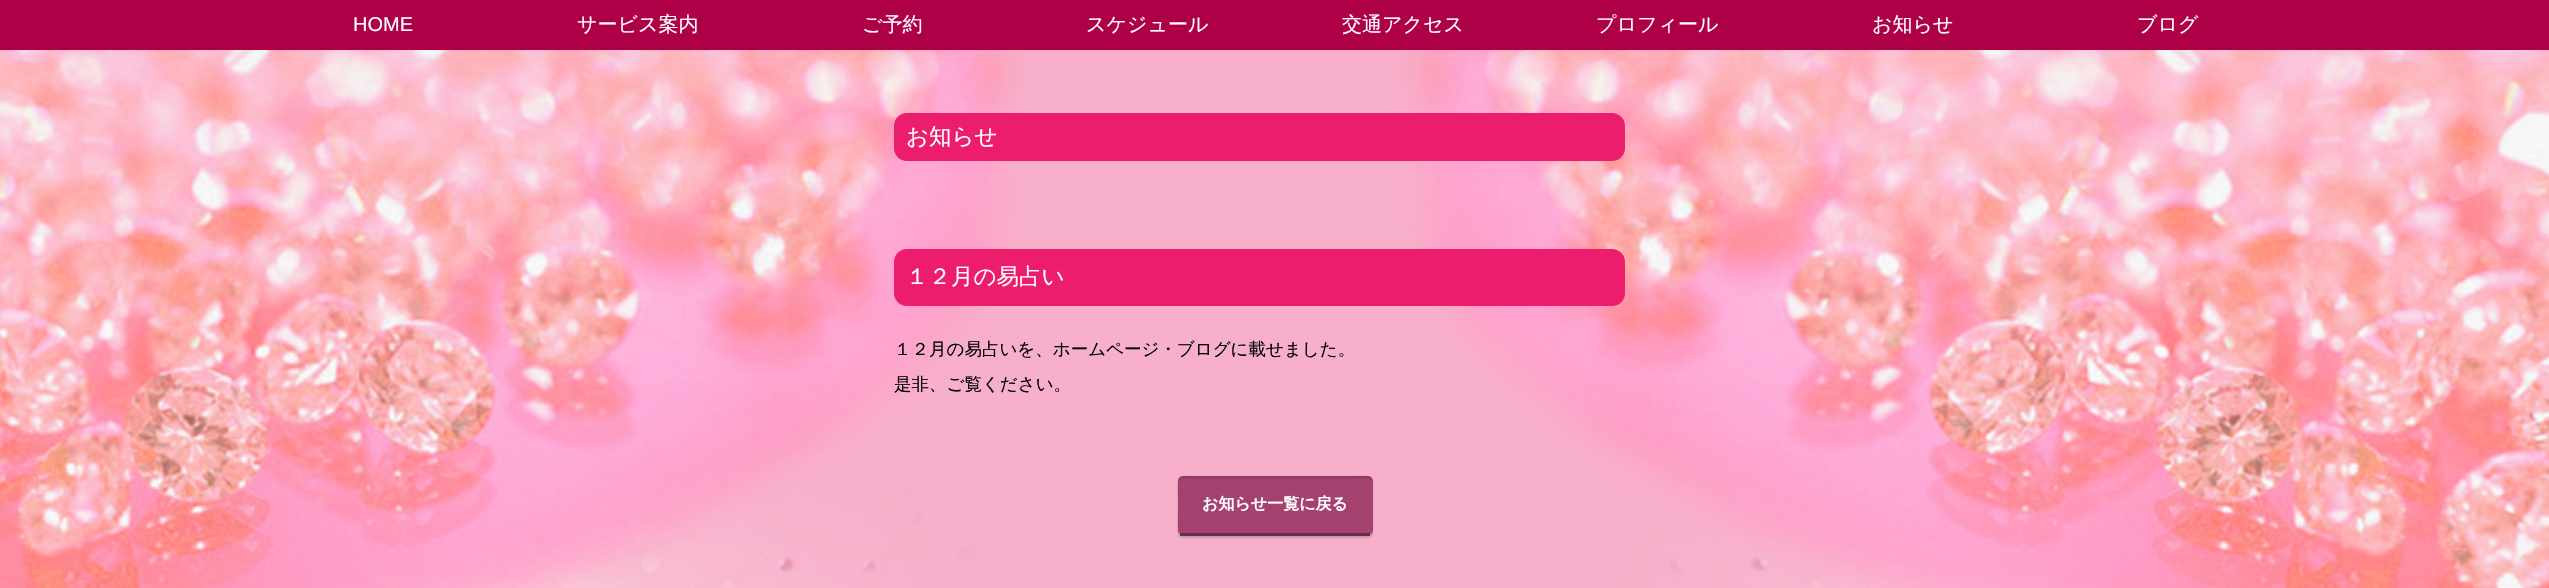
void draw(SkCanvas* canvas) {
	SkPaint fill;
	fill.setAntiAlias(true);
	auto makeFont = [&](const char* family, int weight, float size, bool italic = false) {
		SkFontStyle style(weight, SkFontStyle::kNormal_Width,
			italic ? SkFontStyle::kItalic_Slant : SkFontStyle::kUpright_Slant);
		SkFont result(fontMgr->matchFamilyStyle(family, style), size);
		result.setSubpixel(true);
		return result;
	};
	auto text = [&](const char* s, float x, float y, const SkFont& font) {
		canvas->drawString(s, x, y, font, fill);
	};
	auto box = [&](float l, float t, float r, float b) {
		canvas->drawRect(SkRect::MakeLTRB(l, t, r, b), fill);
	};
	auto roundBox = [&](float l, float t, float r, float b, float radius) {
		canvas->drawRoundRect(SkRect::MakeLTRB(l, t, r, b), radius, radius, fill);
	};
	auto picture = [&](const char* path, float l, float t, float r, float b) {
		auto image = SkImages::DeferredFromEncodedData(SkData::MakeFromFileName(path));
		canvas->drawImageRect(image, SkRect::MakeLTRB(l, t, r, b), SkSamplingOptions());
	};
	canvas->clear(0xFFFFFFFF);
	picture("image0.png", 0, 50, 2549, 588);
	fill.setColor(0xFFAE0047);
	box(0, 0, 2549, 50);
	fill.setColor(0xFFEB1D6C);
	roundBox(894, 113, 1625, 161, 13);
	roundBox(894, 249, 1625, 306, 13);
	fill.setColor(0xFFC199AB);
	fill.setMaskFilter(SkMaskFilter::MakeBlur(kNormal_SkBlurStyle, 1));
	canvas->drawRoundRect(SkRect::MakeLTRB(1178, 479, 1373, 538), 5, 5, fill);
	fill.setMaskFilter(nullptr);
	fill.setColor(0xFFA5416F);
	roundBox(1178, 476, 1373, 535, 5);
	fill.setColor(0x335E2841);
	canvas->drawPath(SkPathBuilder().moveTo(1182, 479).lineTo(1368, 479).cubicTo(1370, 479, 1372, 481, 1372, 484).lineTo(1372, 531).cubicTo(1373, 530, 1372, 509, 1372, 506).cubicTo(1372, 469, 1379, 476, 1337, 476).lineTo(1213, 476).cubicTo(1171, 476, 1178, 469, 1178, 506).cubicTo(1178, 509, 1177, 530, 1178, 531).lineTo(1178, 484).cubicTo(1178, 481, 1180, 479, 1182, 479).close().detach(), fill);
	fill.setColor(0xFF682C48);
	box(1180, 533, 1370, 536);
	auto font1 = makeFont("Liberation Sans", 400, 20);
	fill.setColor(0xFFFFFFFF);
	text("HOME", 353, 31, font1);
	auto font2 = makeFont("WenQuanYi Zen Hei", 500, 20);
	text("サービス案内", 577, 31, font2);
	text("ご予約", 862, 31, font2);
	text("スケジュール", 1086, 31, font2);
	text("交通アクセス", 1342, 31, font2);
	text("プロフィール", 1596, 31, font2);
	text("お知らせ", 1872, 31, font2);
	text("ブログ", 2137, 31, font2);
	auto font3 = makeFont("WenQuanYi Zen Hei", 500, 22.5f);
	text("お知らせ", 906, 144, font3);
	text("１２月の易占い", 906, 284, font3);
	auto font4 = makeFont("WenQuanYi Zen Hei", 500, 17.5f);
	fill.setColor(0xFF000000);
	text("１２月の易占いを、ホームページ・ブログに載せました。", 894, 355, font4);
	text("是非、ご覧ください。", 894, 390, font4);
	auto font5 = makeFont("WenQuanYi Zen Hei", 700, 16);
	fill.setColor(0xFFFFFFFF);
	text("お知らせ一覧に戻る", 1202, 509, font5);
}
